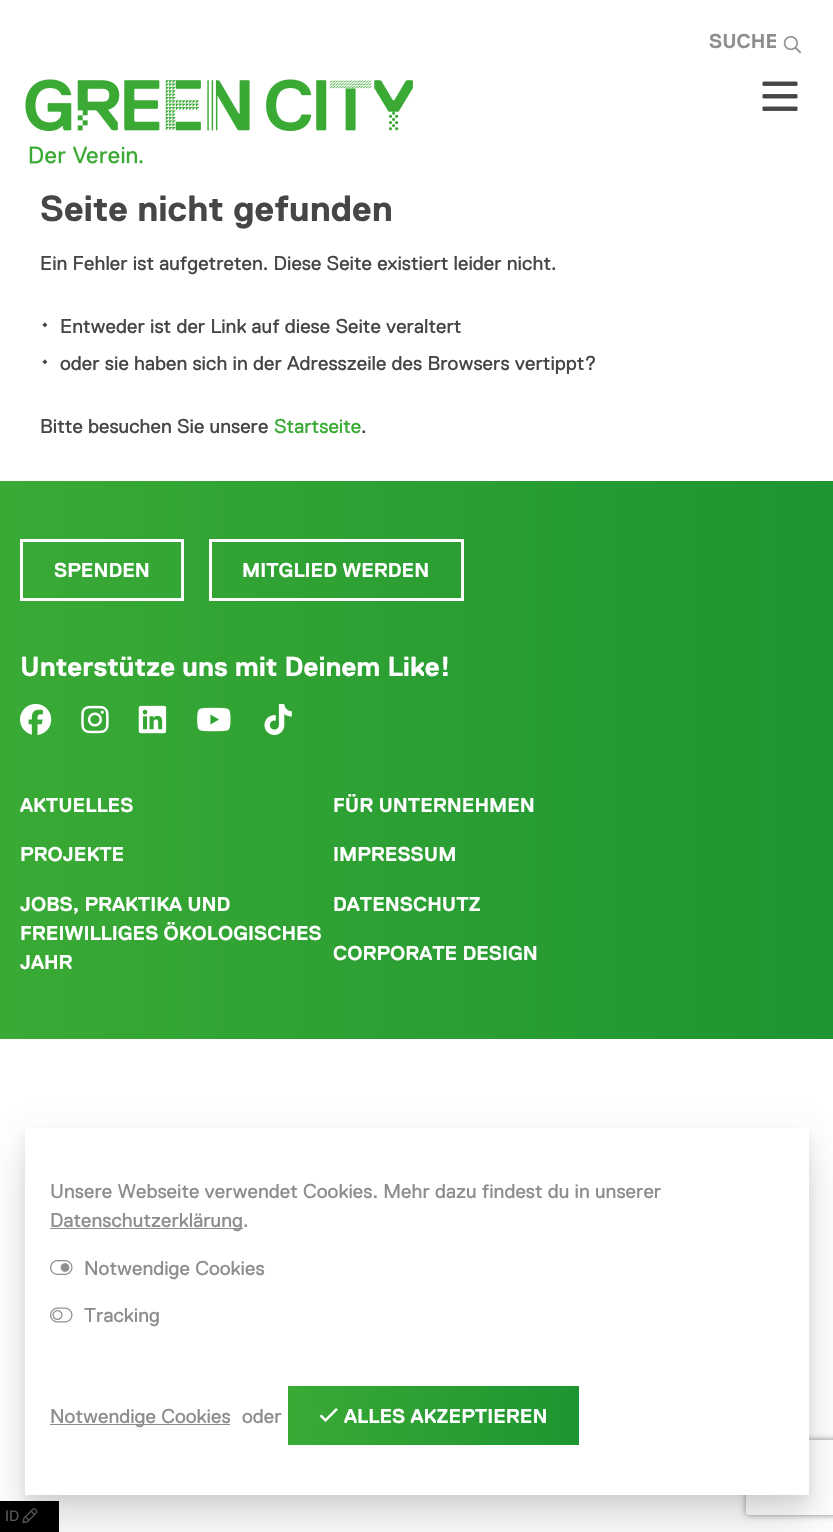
void draw(SkCanvas* canvas) {
	SkPaint fill;
	fill.setAntiAlias(true);
	auto makeFont = [&](const char* family, int weight, float size, bool italic = false) {
		SkFontStyle style(weight, SkFontStyle::kNormal_Width,
			italic ? SkFontStyle::kItalic_Slant : SkFontStyle::kUpright_Slant);
		SkFont result(fontMgr->matchFamilyStyle(family, style), size);
		result.setSubpixel(true);
		return result;
	};
	auto text = [&](const char* s, float x, float y, const SkFont& font) {
		canvas->drawString(s, x, y, font, fill);
	};
	auto box = [&](float l, float t, float r, float b) {
		canvas->drawRect(SkRect::MakeLTRB(l, t, r, b), fill);
	};
	auto picture = [&](const char* path, float l, float t, float r, float b) {
		auto image = SkImages::DeferredFromEncodedData(SkData::MakeFromFileName(path));
		canvas->drawImageRect(image, SkRect::MakeLTRB(l, t, r, b), SkSamplingOptions());
	};
	canvas->clear(0xFFFFFFFF);
	picture("image0.png", 783, 36, 802, 54);
	picture("image1.png", 25, 79, 413, 164);
	picture("image2.png", 762, 81, 798, 111);
	{
		const SkColor colors[] = {0xFF3AAA35, 0xFF1E9532};
		const float stops[] = {0, 1};
		const SkPoint ends[] = {{0, 760}, {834, 760}};
		fill.setShader(SkGradientShader::MakeLinear(ends, colors, stops, 2, SkTileMode::kClamp));
		fill.setAlpha(255);
	}
	box(0, 481, 833, 1039);
	fill.setStyle(SkPaint::kStroke_Style);
	fill.setStrokeWidth(3);
	fill.setShader(nullptr);
	fill.setColor(0xFFFFFFFF);
	canvas->drawRect(SkRect::MakeLTRB(21.5f, 540.5f, 182.5f, 599.5f), fill);
	canvas->drawRect(SkRect::MakeLTRB(210.5f, 540.5f, 462.5f, 599.5f), fill);
	picture("image3.png", 20, 703, 52, 735);
	picture("image4.png", 81, 705, 109, 734);
	picture("image5.png", 138, 705, 167, 734);
	picture("image6.png", 197, 707, 231, 732);
	picture("image7.png", 264, 704, 292, 735);
	fill.setStyle(SkPaint::kFill_Style);
	fill.setColor(0x12000000);
	fill.setMaskFilter(SkMaskFilter::MakeBlur(kNormal_SkBlurStyle, 20));
	canvas->drawRect(SkRect::MakeLTRB(25, 1158, 809, 1525), fill);
	fill.setMaskFilter(nullptr);
	fill.setMaskFilter(SkMaskFilter::MakeBlur(kNormal_SkBlurStyle, 15));
	canvas->drawRect(SkRect::MakeLTRB(25, 1148, 809, 1515), fill);
	fill.setMaskFilter(nullptr);
	fill.setMaskFilter(SkMaskFilter::MakeBlur(kNormal_SkBlurStyle, 5));
	canvas->drawRect(SkRect::MakeLTRB(25, 1133, 809, 1500), fill);
	fill.setMaskFilter(nullptr);
	canvas->save();
	canvas->clipPath(SkPathBuilder(SkPathFillType::kEvenOdd).moveTo(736, 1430).lineTo(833, 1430).lineTo(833, 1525).lineTo(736, 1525).close().moveTo(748.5f, 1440).lineTo(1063.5f, 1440).cubicTo(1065, 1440, 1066, 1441, 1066, 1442.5f).lineTo(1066, 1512.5f).cubicTo(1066, 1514, 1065, 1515, 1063.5f, 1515).lineTo(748.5f, 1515).cubicTo(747, 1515, 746, 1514, 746, 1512.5f).lineTo(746, 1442.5f).cubicTo(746, 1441, 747, 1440, 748.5f, 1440).close().detach(), true);
	fill.setColor(0xFF808080);
	fill.setMaskFilter(SkMaskFilter::MakeBlur(kNormal_SkBlurStyle, 3));
	canvas->drawRoundRect(SkRect::MakeLTRB(746, 1440, 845, 1515), 2.5f, 2.5f, fill);
	fill.setMaskFilter(nullptr);
	canvas->restore();
	fill.setColor(0xFFFFFFFF);
	box(25, 1128, 809, 1495);
	fill.setColor(0xFF8E8E8E);
	box(50, 1228, 243, 1229);
	picture("image8.png", 50, 1260, 73, 1275);
	picture("image9.png", 50, 1307, 73, 1323);
	box(50, 1424, 230, 1425);
	{
		const SkColor colors[] = {0xFF3AAA35, 0xFF1E9532};
		const float stops[] = {0, 1};
		const SkPoint ends[] = {{288, 1416}, {579, 1416}};
		fill.setShader(SkGradientShader::MakeLinear(ends, colors, stops, 2, SkTileMode::kClamp));
		fill.setAlpha(255);
	}
	box(288, 1386, 579, 1445);
	picture("image10.png", 319, 1408, 338, 1422);
	fill.setShader(nullptr);
	fill.setColor(0xFF000000);
	box(0, 1501, 59, 1532);
	picture("image11.png", 22, 1508, 38, 1524);
	auto font1 = makeFont("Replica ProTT", 700, 20);
	fill.setColor(0xFF8E8E8E);
	text("SUCHE", 709, 48, font1);
	fill.setColor(0xFFFFFFFF);
	box(776, 34, 777, 48);
	auto font2 = makeFont("Replica ProTT", 700, 36.25f);
	fill.setColor(0xFF464646);
	text("Seite nicht gefunden", 40, 221, font2);
	auto font3 = makeFont("Replica ProTT", 400, 20);
	text("Ein Fehler ist aufgetreten. Diese Seite existiert leider nicht.", 40, 270, font3);
	text("•", 41, 330, font3);
	text("Entweder ist der Link auf diese Seite veraltert", 60, 333, font3);
	text("•", 41, 367, font3);
	text("oder sie haben sich in der Adresszeile des Browsers vertippt?", 60, 370, font3);
	text("Bitte besuchen Sie unsere", 40, 433, font3);
	fill.setColor(0xFF3AAA35);
	text("Startseite", 274, 433, font3);
	fill.setColor(0xFF464646);
	text(".", 361, 433, font3);
	fill.setColor(0xFFFFFFFF);
	text("SPENDEN", 54, 577, font1);
	text("MITGLIED WERDEN", 242, 577, font1);
	auto font4 = makeFont("Replica ProTT", 700, 27.5f);
	text("Unterstütze uns mit Deinem Like!", 20, 676, font4);
	text("AKTUELLES", 20, 812, font1);
	text("PROJEKTE", 20, 861, font1);
	text("JOBS, PRAKTIKA UND", 20, 911, font1);
	text("FREIWILLIGES ÖKOLOGISCHES", 20, 940, font1);
	text("JAHR", 20, 969, font1);
	text("FÜR UNTERNEHMEN", 333, 812, font1);
	text("IMPRESSUM", 333, 861, font1);
	text("DATENSCHUTZ", 333, 911, font1);
	text("CORPORATE DESIGN", 333, 960, font1);
	fill.setColor(0xFF8E8E8E);
	text("Unsere Webseite verwendet Cookies. Mehr dazu findest du in unserer", 50, 1198, font3);
	text("Datenschutzerklärung.", 50, 1227, font3);
	text("Notwendige Cookies", 84, 1275, font3);
	text("Tracking", 84, 1322, font3);
	text("Notwendige Cookies", 50, 1423, font3);
	text("oder", 242, 1423, font3);
	fill.setColor(0xFFFFFFFF);
	text("ALLES AKZEPTIEREN", 344, 1423, font1);
	auto font5 = makeFont("Replica ProTT", 400, 15);
	fill.setColor(0xFF555555);
	text("ID", 5, 1521, font5);
}
